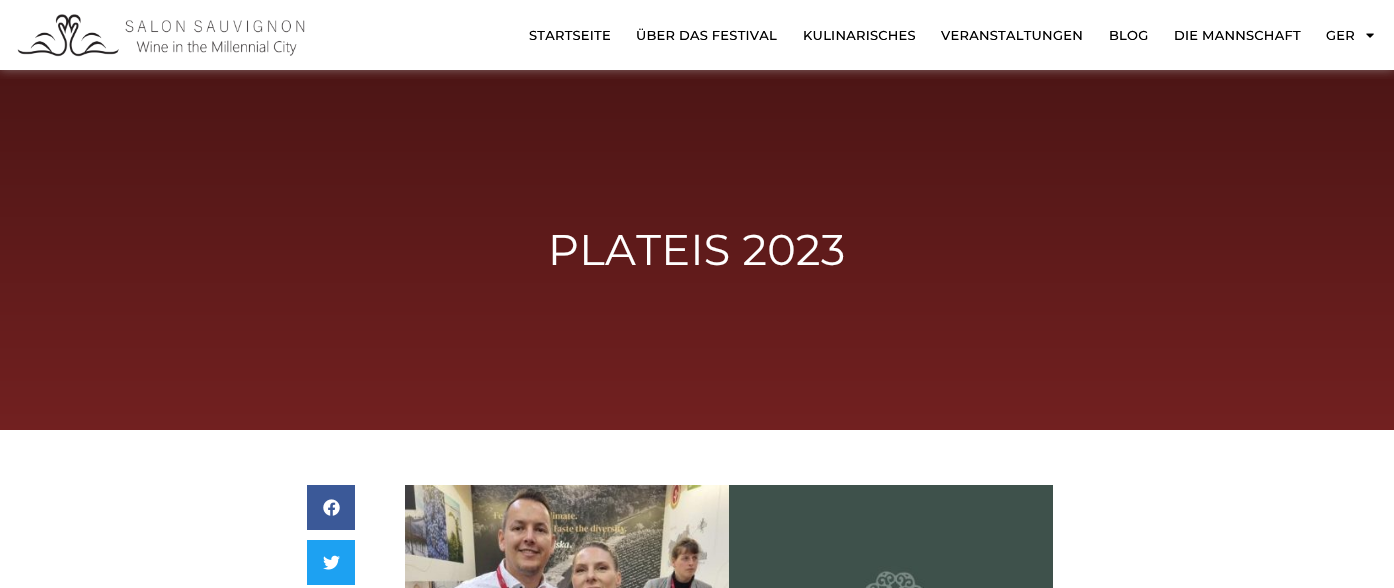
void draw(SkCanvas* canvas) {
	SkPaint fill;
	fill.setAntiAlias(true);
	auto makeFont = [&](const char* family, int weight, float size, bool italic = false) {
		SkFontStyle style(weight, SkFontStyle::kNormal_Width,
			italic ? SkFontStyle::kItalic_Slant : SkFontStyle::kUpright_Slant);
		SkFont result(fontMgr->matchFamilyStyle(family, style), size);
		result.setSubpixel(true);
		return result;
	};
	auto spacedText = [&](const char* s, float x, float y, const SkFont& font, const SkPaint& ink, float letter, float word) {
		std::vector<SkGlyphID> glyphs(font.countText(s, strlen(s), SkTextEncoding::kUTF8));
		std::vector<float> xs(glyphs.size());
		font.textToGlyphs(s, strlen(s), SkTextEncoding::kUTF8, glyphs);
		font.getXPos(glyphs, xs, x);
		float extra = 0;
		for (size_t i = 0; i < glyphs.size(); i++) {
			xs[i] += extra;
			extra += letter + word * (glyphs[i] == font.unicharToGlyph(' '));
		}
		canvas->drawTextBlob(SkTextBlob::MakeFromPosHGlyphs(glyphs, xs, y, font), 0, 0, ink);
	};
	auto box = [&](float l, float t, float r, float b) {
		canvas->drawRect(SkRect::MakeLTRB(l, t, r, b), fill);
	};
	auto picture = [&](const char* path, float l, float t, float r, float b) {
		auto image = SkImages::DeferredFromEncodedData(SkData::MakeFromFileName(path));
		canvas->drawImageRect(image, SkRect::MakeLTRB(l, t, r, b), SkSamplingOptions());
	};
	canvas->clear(0xFFFFFFFF);
	{
		const SkColor colors[] = {0xFF4C1515, 0xFF722020};
		const float stops[] = {0, 1};
		const SkPoint ends[] = {{697, 70}, {697, 430}};
		fill.setShader(SkGradientShader::MakeLinear(ends, colors, stops, 2, SkTileMode::kClamp));
		fill.setAlpha(255);
	}
	box(0, 70, 1394, 430);
	canvas->save();
	canvas->clipRect(SkRect::MakeLTRB(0, 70, 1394, 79));
	fill.setShader(nullptr);
	fill.setColor(0x80BFBFBF);
	fill.setMaskFilter(SkMaskFilter::MakeBlur(kNormal_SkBlurStyle, 5));
	canvas->drawRect(SkRect::MakeLTRB(0, 0, 1394, 70), fill);
	fill.setMaskFilter(nullptr);
	canvas->restore();
	picture("image0.png", 17, 14, 305, 57);
	picture("image1.png", 1366, 33, 1374, 38);
	fill.setColor(0xFF3B5998);
	box(307, 485, 355, 530);
	picture("image2.png", 323, 499, 340, 516);
	fill.setColor(0xFF1DA1F2);
	box(307, 540, 355, 585);
	picture("image3.png", 323, 555, 340, 570);
	picture("image4.png", 405, 485, 1053, 588);
	auto font1 = makeFont("Montserrat", 500, 13);
	fill.setColor(0xFF000000);
	spacedText("STARTSEITE", 529, 40, font1, fill, 0.25f, 0);
	spacedText("ÜBER DAS FESTIVAL", 636, 40, font1, fill, 0.25f, 0);
	spacedText("KULINARISCHES", 803, 40, font1, fill, 0.25f, 0);
	spacedText("VERANSTALTUNGEN", 941, 40, font1, fill, 0.25f, 0);
	spacedText("BLOG", 1109, 40, font1, fill, 0.25f, 0);
	spacedText("DIE MANNSCHAFT", 1174, 40, font1, fill, 0.25f, 0);
	spacedText("GER", 1326, 40, font1, fill, 0.25f, 0);
	auto font2 = makeFont("Montserrat", 400, 43);
	fill.setColor(0xFFFFFFFF);
	spacedText("PLATEIS 2023", 548, 265, font2, fill, 0.4f, 0);
}
